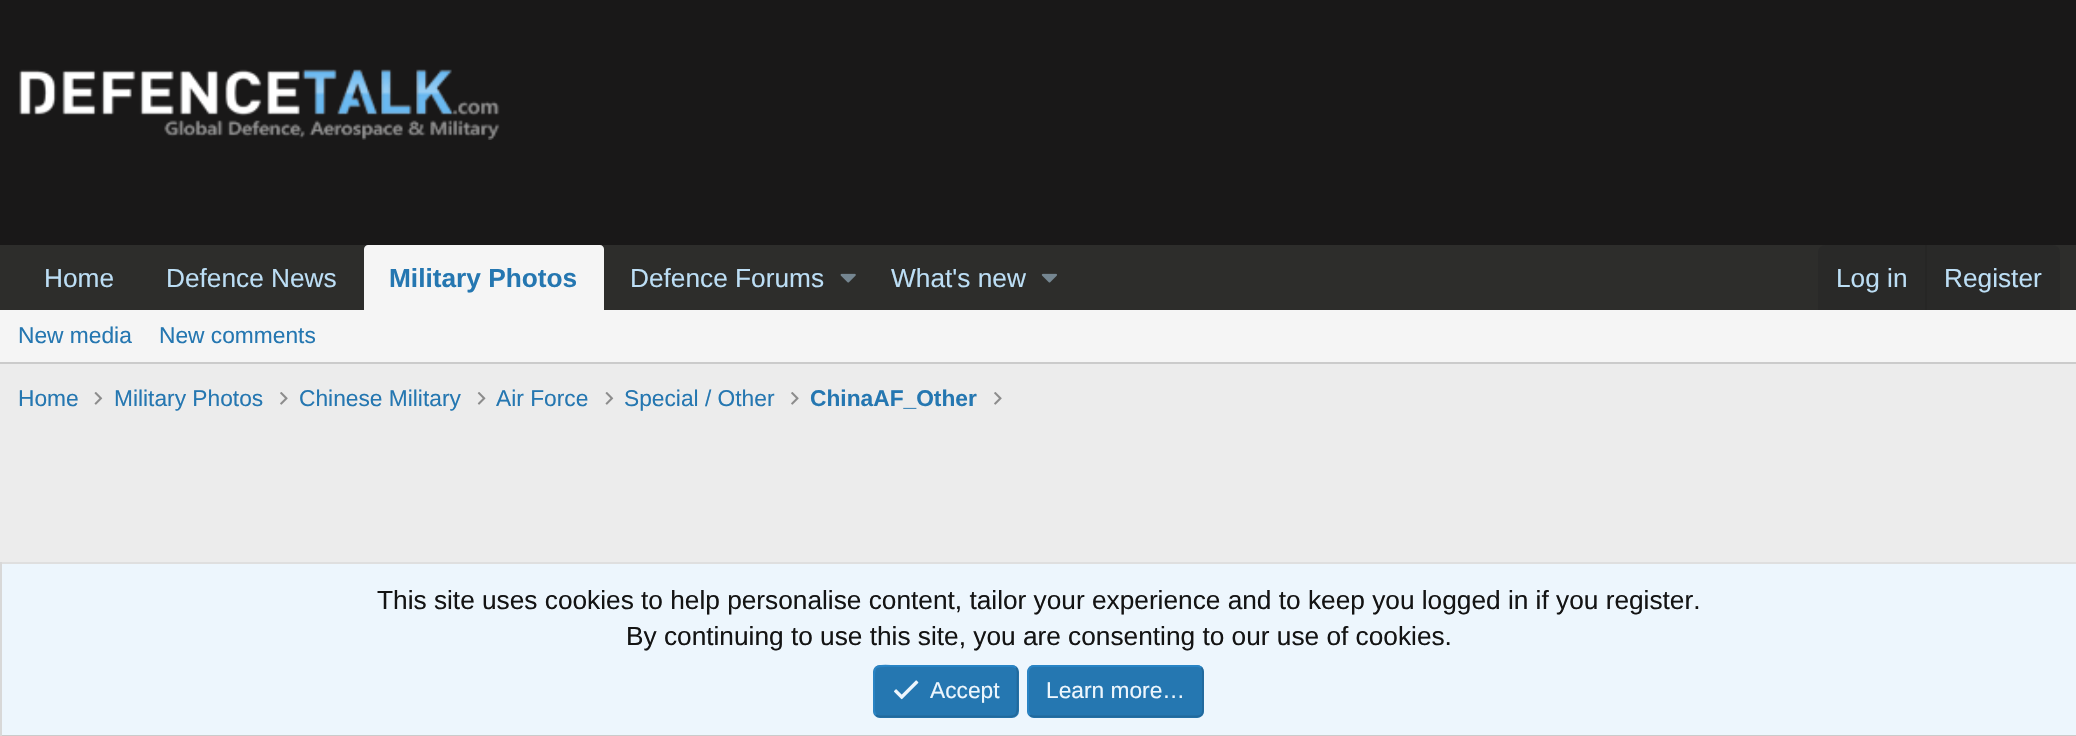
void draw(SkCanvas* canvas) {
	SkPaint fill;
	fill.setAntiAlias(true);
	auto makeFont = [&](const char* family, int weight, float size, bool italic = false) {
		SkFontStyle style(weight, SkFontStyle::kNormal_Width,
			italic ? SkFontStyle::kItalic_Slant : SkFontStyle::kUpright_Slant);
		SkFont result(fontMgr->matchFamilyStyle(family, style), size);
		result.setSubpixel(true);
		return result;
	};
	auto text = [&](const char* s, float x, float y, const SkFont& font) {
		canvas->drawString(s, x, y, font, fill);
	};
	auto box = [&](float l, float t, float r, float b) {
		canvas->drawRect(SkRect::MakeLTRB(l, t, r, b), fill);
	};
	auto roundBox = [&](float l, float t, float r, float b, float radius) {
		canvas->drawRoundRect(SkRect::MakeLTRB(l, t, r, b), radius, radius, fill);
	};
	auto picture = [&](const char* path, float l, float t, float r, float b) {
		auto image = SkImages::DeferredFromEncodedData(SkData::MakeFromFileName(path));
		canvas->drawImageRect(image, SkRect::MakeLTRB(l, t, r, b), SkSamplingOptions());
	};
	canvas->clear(0xFFECECEC);
	fill.setColor(0xFF191818);
	box(0, 0, 2076, 245);
	picture("image0.png", 19, 69, 500, 140);
	fill.setColor(0xFF2D2D2B);
	box(0, 245, 2076, 310);
	fill.setColor(0xFFF5F5F5);
	canvas->drawPath(SkPathBuilder().moveTo(368, 245).lineTo(600, 245).cubicTo(602, 245, 604, 247, 604, 249).lineTo(604, 310).lineTo(364, 310).lineTo(364, 249).cubicTo(364, 247, 366, 245, 368, 245).close().detach(), fill);
	picture("image1.png", 840, 273, 856, 283);
	picture("image2.png", 1041, 273, 1057, 283);
	fill.setColor(0xFF292928);
	canvas->drawPath(SkPathBuilder().moveTo(1825, 245).lineTo(2053, 245).cubicTo(2057, 245, 2060, 248, 2060, 252).lineTo(2060, 310).lineTo(1818, 310).lineTo(1818, 252).cubicTo(1818, 248, 1821, 245, 1825, 245).close().detach(), fill);
	fill.setColor(0xFF262625);
	box(1925, 245, 1927, 310);
	fill.setColor(0xFFF5F5F5);
	box(0, 310, 2076, 362);
	fill.setColor(0xFFCBCBCB);
	box(0, 362, 2076, 364);
	picture("image3.png", 94, 392, 103, 405);
	picture("image4.png", 280, 392, 288, 405);
	picture("image5.png", 477, 392, 486, 405);
	picture("image3.png", 605, 392, 614, 405);
	picture("image4.png", 791, 392, 799, 405);
	picture("image4.png", 994, 392, 1002, 405);
	fill.setColor(0xFFEDF6FD);
	box(2, 564, 2076, 735);
	fill.setColor(0xFFDFDFDF);
	box(0, 562, 2076, 564);
	fill.setColor(0xFFCBCBCB);
	box(0, 735, 2076, 736);
	fill.setColor(0xFFD8D8D8);
	box(0, 562, 2, 736);
	fill.setColor(0xFF2577B1);
	roundBox(873, 665, 1019, 718, 7);
	fill.setStyle(SkPaint::kStroke_Style);
	fill.setStrokeWidth(1.8f);
	fill.setColor(0xFF21699C);
	canvas->drawPath(SkPathBuilder().moveTo(1016, 667.5f).cubicTo(1018.5f, 670.5f, 1017.5f, 675, 1017.5f, 678.5f).lineTo(1017.5f, 691).cubicTo(1017.5f, 721, 1021.5f, 716.5f, 989.5f, 716.5f).lineTo(880, 716.5f).cubicTo(878.5f, 716.5f, 877, 716, 876, 715).detach(), fill);
	fill.setColor(0xFF2985C6);
	canvas->drawPath(SkPathBuilder().moveTo(876, 715).cubicTo(873, 712, 874, 707.5f, 874, 704).lineTo(874, 691).cubicTo(874, 661.5f, 870.5f, 666, 902, 666).lineTo(1011.5f, 666).cubicTo(1013, 666, 1014.5f, 666.5f, 1016, 667.5f).detach(), fill);
	picture("image6.png", 894, 680, 919, 700);
	fill.setStyle(SkPaint::kFill_Style);
	fill.setColor(0xFF2577B1);
	roundBox(1027, 665, 1204, 718, 7);
	fill.setStyle(SkPaint::kStroke_Style);
	fill.setColor(0xFF21699C);
	canvas->drawPath(SkPathBuilder().moveTo(1201.5f, 667.5f).cubicTo(1202.5f, 669, 1203, 670.5f, 1203, 672).lineTo(1203, 710.5f).cubicTo(1203, 712, 1202.5f, 713.5f, 1201.5f, 715).cubicTo(1200, 716, 1198.5f, 716.5f, 1197, 716.5f).lineTo(1034, 716.5f).cubicTo(1032.5f, 716.5f, 1031, 716, 1030, 715).detach(), fill);
	fill.setColor(0xFF2985C6);
	canvas->drawPath(SkPathBuilder().moveTo(1030, 715).cubicTo(1029, 713.5f, 1028, 712, 1028, 710.5f).lineTo(1028, 672).cubicTo(1028, 670.5f, 1029, 669, 1030, 667.5f).cubicTo(1031, 666.5f, 1032.5f, 666, 1034, 666).lineTo(1197, 666).cubicTo(1198.5f, 666, 1200, 666.5f, 1201.5f, 667.5f).detach(), fill);
	auto font1 = makeFont("Liberation Sans", 400, 26.25f);
	fill.setStyle(SkPaint::kFill_Style);
	fill.setColor(0xFFBCDEF5);
	text("Home", 44, 287, font1);
	text("Defence News", 166, 287, font1);
	auto font2 = makeFont("Liberation Sans", 700, 26.25f);
	fill.setColor(0xFF2577B1);
	text("Military Photos", 389, 287, font2);
	fill.setColor(0xFFBCDEF5);
	text("Defence Forums", 630, 287, font1);
	text("What's new", 891, 287, font1);
	text("Log in", 1836, 287, font1);
	text("Register", 1944, 287, font1);
	auto font3 = makeFont("Liberation Sans", 400, 22.75f);
	fill.setColor(0xFF2577B1);
	text("New media", 18, 343, font3);
	text("New comments", 159, 343, font3);
	text("Home", 18, 406, font3);
	text("Military Photos", 114, 406, font3);
	text("Chinese Military", 299, 406, font3);
	text("Air Force", 496, 406, font3);
	text("Special / Other", 624, 406, font3);
	auto font4 = makeFont("Liberation Sans", 700, 22.75f);
	text("ChinaAF_Other", 810, 406, font4);
	fill.setColor(0xFF141414);
	text("This site uses cookies to help personalise content, tailor your experience and to keep you logged in if you register.", 377, 609, font1);
	text("By continuing to use this site, you are consenting to our use of cookies.", 626, 645, font1);
	fill.setColor(0xFFEDF6FD);
	text("Accept", 930, 698, font3);
	text("Learn more…", 1046, 698, font3);
}
